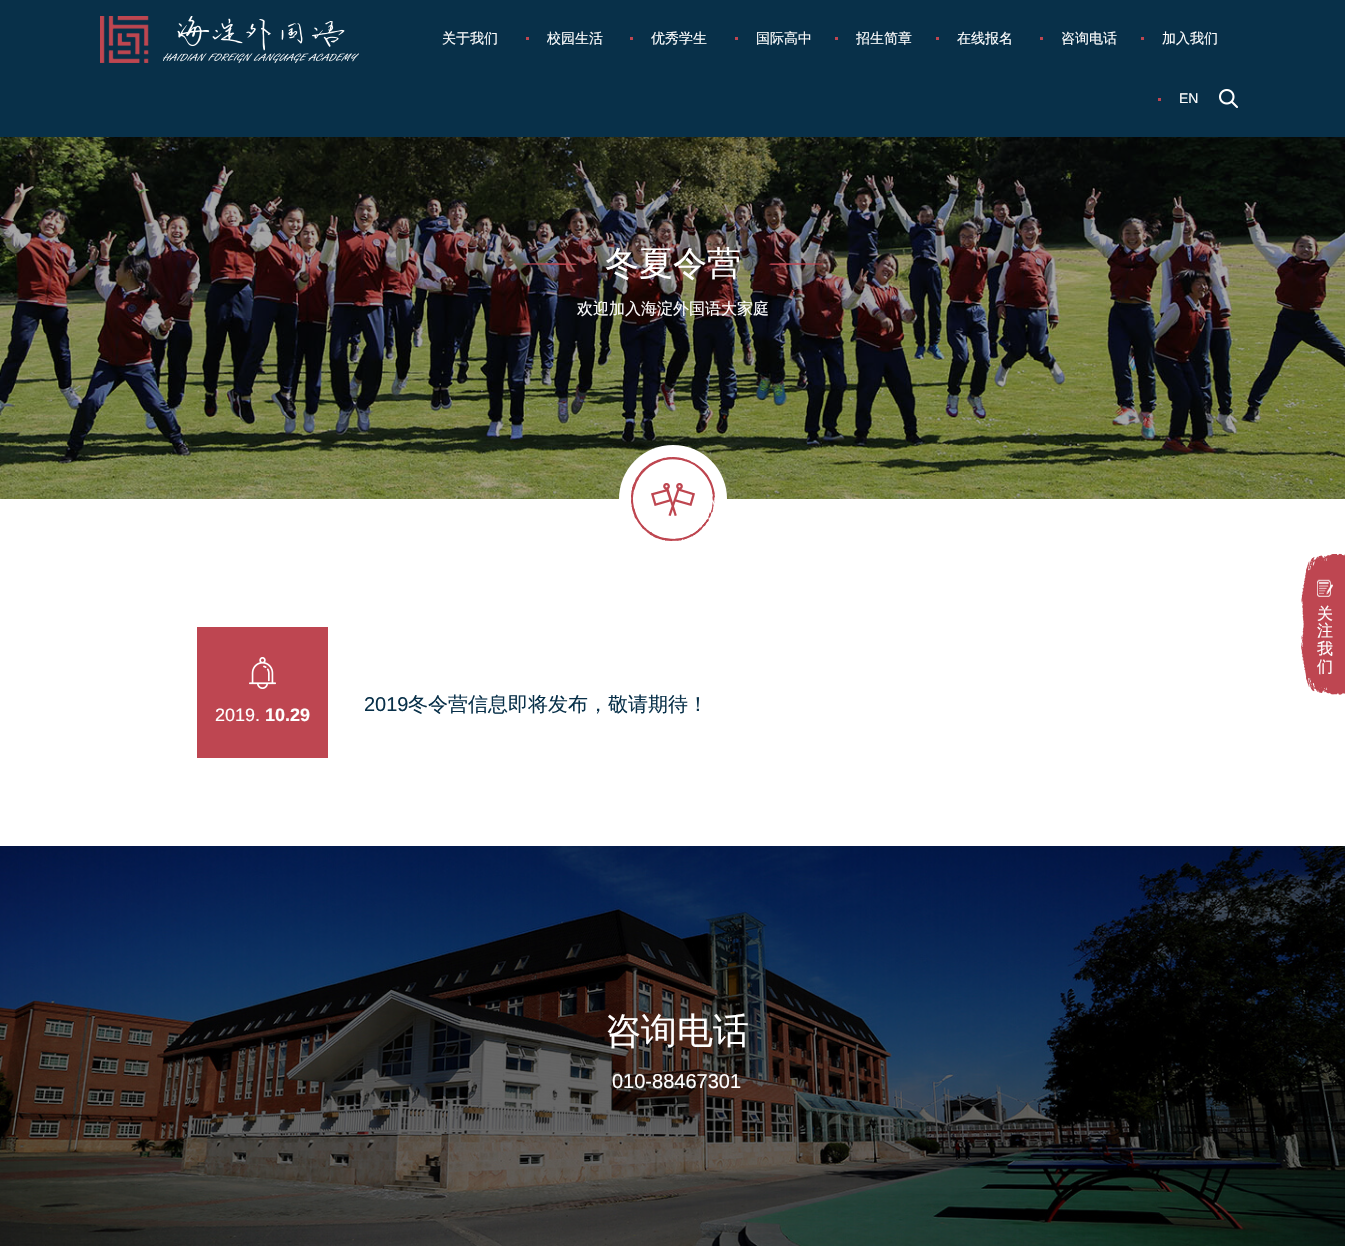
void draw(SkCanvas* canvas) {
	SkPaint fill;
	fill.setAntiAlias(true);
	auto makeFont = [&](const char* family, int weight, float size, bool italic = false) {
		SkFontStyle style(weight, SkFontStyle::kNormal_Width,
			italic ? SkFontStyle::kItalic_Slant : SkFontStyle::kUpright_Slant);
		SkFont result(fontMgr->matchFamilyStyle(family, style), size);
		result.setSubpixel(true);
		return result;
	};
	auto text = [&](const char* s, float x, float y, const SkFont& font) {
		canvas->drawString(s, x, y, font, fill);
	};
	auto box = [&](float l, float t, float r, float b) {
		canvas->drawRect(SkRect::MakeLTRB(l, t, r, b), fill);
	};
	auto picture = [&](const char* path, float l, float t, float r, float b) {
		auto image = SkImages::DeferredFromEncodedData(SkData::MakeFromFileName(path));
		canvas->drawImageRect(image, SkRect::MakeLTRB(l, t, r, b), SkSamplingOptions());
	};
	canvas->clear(0xFFFFFFFF);
	fill.setColor(0xFF083049);
	box(0, 0, 1345, 137);
	picture("image0.png", 100, 16, 359, 63);
	fill.setColor(0xFFBE4651);
	box(526, 37, 529, 40);
	box(630, 37, 633, 40);
	box(735, 37, 738, 40);
	box(835, 37, 838, 40);
	box(936, 37, 939, 40);
	box(1040, 37, 1043, 40);
	box(1141, 37, 1144, 40);
	box(1158, 98, 1161, 101);
	picture("image1.png", 1219, 89, 1238, 108);
	picture("image2.png", 0, 137, 1345, 499);
	picture("image3.png", 521, 263, 577, 265);
	picture("image4.png", 769, 263, 825, 265);
	fill.setColor(0xFFFFFFFF);
	canvas->drawCircle(673, 499, 54, fill);
	picture("image5.png", 631, 457, 715, 541);
	picture("image6.png", 1301, 553, 1345, 695);
	picture("image7.png", 1317, 579, 1333, 597);
	fill.setColor(0xFFBE4651);
	box(197, 627, 328, 758);
	picture("image8.png", 249, 657, 276, 689);
	picture("image9.png", 0, 846, 1345, 1246);
	auto font1 = makeFont("WenQuanYi Zen Hei", 500, 14);
	fill.setColor(0xFFFFFFFF);
	text("关于我们", 442, 43, font1);
	text("校园生活", 547, 43, font1);
	text("优秀学生", 651, 43, font1);
	text("国际高中", 756, 43, font1);
	text("招生简章", 856, 43, font1);
	text("在线报名", 957, 43, font1);
	text("咨询电话", 1061, 43, font1);
	text("加入我们", 1162, 43, font1);
	auto font2 = makeFont("Liberation Sans", 400, 14);
	text("EN", 1179, 103, font2);
	auto font3 = makeFont("WenQuanYi Zen Hei", 500, 34);
	text("冬夏令营", 605, 275, font3);
	auto font4 = makeFont("WenQuanYi Zen Hei", 500, 16);
	text("欢迎加入海淀外国语大家庭", 577, 314, font4);
	text("关", 1317, 619, font4);
	text("注", 1317, 636, font4);
	text("我", 1317, 654, font4);
	text("们", 1317, 672, font4);
	auto font5 = makeFont("Liberation Sans", 400, 18);
	text("2019.", 215, 721, font5);
	auto font6 = makeFont("Liberation Sans", 700, 18);
	text("10.29", 265, 721, font6);
	auto font7 = makeFont("Liberation Sans", 400, 20);
	fill.setColor(0xFF083049);
	text("2019", 364, 711, font7);
	auto font8 = makeFont("WenQuanYi Zen Hei", 500, 20);
	text("冬令营信息即将发布，敬请期待！", 408, 711, font8);
	auto font9 = makeFont("WenQuanYi Zen Hei", 500, 36);
	fill.setColor(0xFFFFFFFF);
	text("咨询电话", 605, 1043, font9);
	text("010-88467301", 612, 1088, font7);
}
